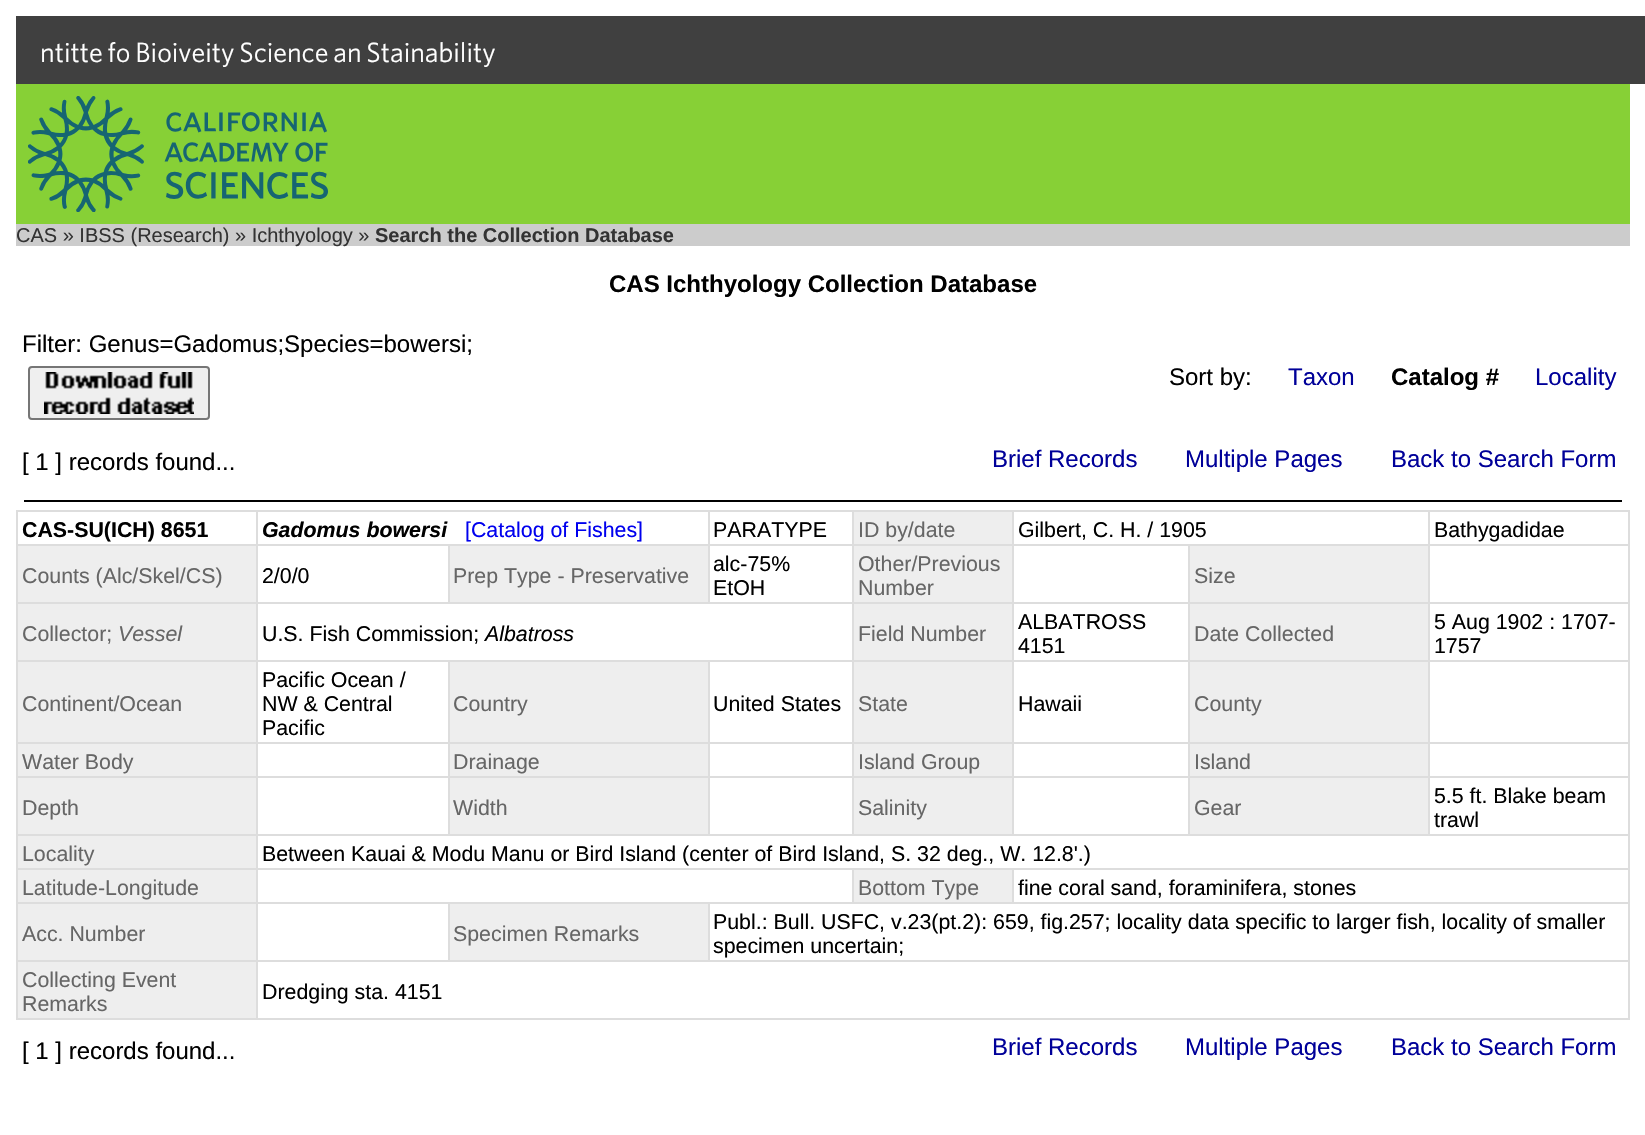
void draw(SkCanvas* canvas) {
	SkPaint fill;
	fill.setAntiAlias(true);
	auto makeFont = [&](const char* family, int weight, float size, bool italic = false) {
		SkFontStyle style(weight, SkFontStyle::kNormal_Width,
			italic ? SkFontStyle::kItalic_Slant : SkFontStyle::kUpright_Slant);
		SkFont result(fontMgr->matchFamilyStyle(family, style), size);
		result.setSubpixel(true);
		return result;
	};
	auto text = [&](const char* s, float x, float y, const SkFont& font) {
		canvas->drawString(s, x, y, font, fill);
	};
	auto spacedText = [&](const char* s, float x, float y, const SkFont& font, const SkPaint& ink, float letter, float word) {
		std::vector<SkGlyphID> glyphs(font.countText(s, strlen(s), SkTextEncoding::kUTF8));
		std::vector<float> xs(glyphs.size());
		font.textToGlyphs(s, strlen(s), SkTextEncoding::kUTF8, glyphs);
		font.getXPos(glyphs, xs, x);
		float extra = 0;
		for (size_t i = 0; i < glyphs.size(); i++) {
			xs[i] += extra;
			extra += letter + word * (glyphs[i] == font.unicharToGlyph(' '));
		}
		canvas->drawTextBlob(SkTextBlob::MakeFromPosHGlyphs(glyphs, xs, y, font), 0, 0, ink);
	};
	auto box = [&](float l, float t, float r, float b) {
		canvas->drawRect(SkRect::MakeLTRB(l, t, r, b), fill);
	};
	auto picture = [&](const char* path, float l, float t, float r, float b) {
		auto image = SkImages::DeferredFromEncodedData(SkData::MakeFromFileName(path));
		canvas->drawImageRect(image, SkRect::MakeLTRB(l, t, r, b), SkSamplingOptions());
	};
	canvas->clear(0xFFFFFFFF);
	fill.setColor(0xFF404040);
	box(16, 16, 1645, 84);
	fill.setColor(0xFF87D036);
	box(16, 84, 1630, 224);
	picture("image0.png", 28, 96, 328, 212);
	fill.setColor(0xFFCCCCCC);
	box(16, 224, 1630, 246);
	fill.setColor(0xFFEFEFEF);
	canvas->drawRoundRect(SkRect::MakeLTRB(29, 367, 209, 419), 3, 3, fill);
	fill.setStyle(SkPaint::kStroke_Style);
	fill.setStrokeWidth(2);
	fill.setColor(0xFF767676);
	canvas->drawRoundRect(SkRect::MakeLTRB(29, 367, 209, 419), 3, 3, fill);
	picture("image1.png", 44, 372, 194, 414);
	fill.setStyle(SkPaint::kFill_Style);
	fill.setColor(0xFF000000);
	box(24, 500, 1622, 502);
	fill.setColor(0xFFDDDDDD);
	box(16, 510, 1630, 1020);
	fill.setColor(0xFFFFFFFF);
	box(18, 512, 256, 544);
	box(258, 512, 708, 544);
	box(710, 512, 852, 544);
	fill.setColor(0xFFEEEEEE);
	box(854, 512, 1012, 544);
	fill.setColor(0xFFFFFFFF);
	box(1014, 512, 1428, 544);
	box(1430, 512, 1628, 544);
	fill.setColor(0xFFEEEEEE);
	box(18, 546, 256, 602);
	fill.setColor(0xFFFFFFFF);
	box(258, 546, 448, 602);
	fill.setColor(0xFFEEEEEE);
	box(450, 546, 708, 602);
	fill.setColor(0xFFFFFFFF);
	box(710, 546, 852, 602);
	fill.setColor(0xFFEEEEEE);
	box(854, 546, 1012, 602);
	fill.setColor(0xFFFFFFFF);
	box(1014, 546, 1188, 602);
	fill.setColor(0xFFEEEEEE);
	box(1190, 546, 1428, 602);
	fill.setColor(0xFFFFFFFF);
	box(1430, 546, 1628, 602);
	fill.setColor(0xFFEEEEEE);
	box(18, 604, 256, 660);
	fill.setColor(0xFFFFFFFF);
	box(258, 604, 852, 660);
	fill.setColor(0xFFEEEEEE);
	box(854, 604, 1012, 660);
	fill.setColor(0xFFFFFFFF);
	box(1014, 604, 1188, 660);
	fill.setColor(0xFFEEEEEE);
	box(1190, 604, 1428, 660);
	fill.setColor(0xFFFFFFFF);
	box(1430, 604, 1628, 660);
	fill.setColor(0xFFEEEEEE);
	box(18, 662, 256, 742);
	fill.setColor(0xFFFFFFFF);
	box(258, 662, 448, 742);
	fill.setColor(0xFFEEEEEE);
	box(450, 662, 708, 742);
	fill.setColor(0xFFFFFFFF);
	box(710, 662, 852, 742);
	fill.setColor(0xFFEEEEEE);
	box(854, 662, 1012, 742);
	fill.setColor(0xFFFFFFFF);
	box(1014, 662, 1188, 742);
	fill.setColor(0xFFEEEEEE);
	box(1190, 662, 1428, 742);
	fill.setColor(0xFFFFFFFF);
	box(1430, 662, 1628, 742);
	fill.setColor(0xFFEEEEEE);
	box(18, 744, 256, 776);
	fill.setColor(0xFFFFFFFF);
	box(258, 744, 448, 776);
	fill.setColor(0xFFEEEEEE);
	box(450, 744, 708, 776);
	fill.setColor(0xFFFFFFFF);
	box(710, 744, 852, 776);
	fill.setColor(0xFFEEEEEE);
	box(854, 744, 1012, 776);
	fill.setColor(0xFFFFFFFF);
	box(1014, 744, 1188, 776);
	fill.setColor(0xFFEEEEEE);
	box(1190, 744, 1428, 776);
	fill.setColor(0xFFFFFFFF);
	box(1430, 744, 1628, 776);
	fill.setColor(0xFFEEEEEE);
	box(18, 778, 256, 834);
	fill.setColor(0xFFFFFFFF);
	box(258, 778, 448, 834);
	fill.setColor(0xFFEEEEEE);
	box(450, 778, 708, 834);
	fill.setColor(0xFFFFFFFF);
	box(710, 778, 852, 834);
	fill.setColor(0xFFEEEEEE);
	box(854, 778, 1012, 834);
	fill.setColor(0xFFFFFFFF);
	box(1014, 778, 1188, 834);
	fill.setColor(0xFFEEEEEE);
	box(1190, 778, 1428, 834);
	fill.setColor(0xFFFFFFFF);
	box(1430, 778, 1628, 834);
	fill.setColor(0xFFEEEEEE);
	box(18, 836, 256, 868);
	fill.setColor(0xFFFFFFFF);
	box(258, 836, 1628, 868);
	fill.setColor(0xFFEEEEEE);
	box(18, 870, 256, 902);
	fill.setColor(0xFFFFFFFF);
	box(258, 870, 852, 902);
	fill.setColor(0xFFEEEEEE);
	box(854, 870, 1012, 902);
	fill.setColor(0xFFFFFFFF);
	box(1014, 870, 1628, 902);
	fill.setColor(0xFFEEEEEE);
	box(18, 904, 256, 960);
	fill.setColor(0xFFFFFFFF);
	box(258, 904, 448, 960);
	fill.setColor(0xFFEEEEEE);
	box(450, 904, 708, 960);
	fill.setColor(0xFFFFFFFF);
	box(710, 904, 1628, 960);
	fill.setColor(0xFFEEEEEE);
	box(18, 962, 256, 1018);
	fill.setColor(0xFFFFFFFF);
	box(258, 962, 1628, 1018);
	auto font1 = makeFont("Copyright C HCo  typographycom", 300, 28);
	spacedText("Institute for Biodiversity Science and Sustainability", 40, 62, font1, fill, 0, -1.5f);
	auto font2 = makeFont("Liberation Sans", 400, 20);
	fill.setColor(0xFF333333);
	text("CAS » IBSS (Research) » Ichthyology »", 16, 242, font2);
	auto font3 = makeFont("Liberation Sans", 700, 20);
	text("Search the Collection Database", 375, 242, font3);
	auto font4 = makeFont("Liberation Sans", 700, 24);
	fill.setColor(0xFF000000);
	text("CAS Ichthyology Collection Database", 609, 292, font4);
	auto font5 = makeFont("Liberation Sans", 400, 24);
	text("Filter: Genus=Gadomus;Species=bowersi;", 22, 352, font5);
	text("Sort by:", 1169, 385, font5);
	fill.setColor(0xFF000099);
	text("Taxon", 1288, 385, font5);
	fill.setColor(0xFF000000);
	text("Catalog #", 1391, 385, font4);
	fill.setColor(0xFF000099);
	text("Locality", 1535, 385, font5);
	fill.setColor(0xFF000000);
	text("[ 1 ] records found...", 22, 470, font5);
	fill.setColor(0xFF000099);
	text("Brief Records", 992, 467, font5);
	text("Multiple Pages", 1185, 467, font5);
	text("Back to Search Form", 1391, 467, font5);
	auto font6 = makeFont("Liberation Sans", 700, 21.35f);
	fill.setColor(0xFF000000);
	text("CAS-SU(ICH) 8651", 22, 537, font6);
	auto font7 = makeFont("Liberation Sans", 700, 21.35f, true);
	text("Gadomus bowersi", 262, 537, font7);
	auto font8 = makeFont("Liberation Sans", 400, 21.35f);
	fill.setColor(0xFF0000EE);
	text("[Catalog of Fishes]", 465, 537, font8);
	fill.setColor(0xFF000000);
	text("PARATYPE", 713, 537, font8);
	fill.setColor(0xFF666666);
	text("ID by/date", 858, 537, font8);
	fill.setColor(0xFF000000);
	text("Gilbert, C. H. / 1905", 1018, 537, font8);
	text("Bathygadidae", 1434, 537, font8);
	fill.setColor(0xFF666666);
	text("Counts (Alc/Skel/CS)", 22, 583, font8);
	fill.setColor(0xFF000000);
	text("2/0/0", 262, 583, font8);
	fill.setColor(0xFF666666);
	text("Prep Type - Preservative", 453, 583, font8);
	fill.setColor(0xFF000000);
	text("alc-75%", 713, 571, font8);
	text("EtOH", 713, 595, font8);
	fill.setColor(0xFF666666);
	text("Other/Previous", 858, 571, font8);
	text("Number", 858, 595, font8);
	text("Size", 1194, 583, font8);
	text("Collector;", 22, 641, font8);
	auto font9 = makeFont("Liberation Sans", 400, 21.35f, true);
	text("Vessel", 118, 641, font9);
	fill.setColor(0xFF000000);
	text("U.S. Fish Commission;", 262, 641, font8);
	text("Albatross", 485, 641, font9);
	fill.setColor(0xFF666666);
	text("Field Number", 858, 641, font8);
	fill.setColor(0xFF000000);
	text("ALBATROSS", 1018, 629, font8);
	text("4151", 1018, 653, font8);
	fill.setColor(0xFF666666);
	text("Date Collected", 1194, 641, font8);
	fill.setColor(0xFF000000);
	text("5 Aug 1902 : 1707-", 1434, 629, font8);
	text("1757", 1434, 653, font8);
	fill.setColor(0xFF666666);
	text("Continent/Ocean", 22, 711, font8);
	fill.setColor(0xFF000000);
	text("Pacific Ocean /", 262, 687, font8);
	text("NW & Central", 262, 711, font8);
	text("Pacific", 262, 735, font8);
	fill.setColor(0xFF666666);
	text("Country", 453, 711, font8);
	fill.setColor(0xFF000000);
	text("United States", 713, 711, font8);
	fill.setColor(0xFF666666);
	text("State", 858, 711, font8);
	fill.setColor(0xFF000000);
	text("Hawaii", 1018, 711, font8);
	fill.setColor(0xFF666666);
	text("County", 1194, 711, font8);
	text("Water Body", 22, 769, font8);
	text("Drainage", 453, 769, font8);
	text("Island Group", 858, 769, font8);
	text("Island", 1194, 769, font8);
	text("Depth", 22, 815, font8);
	text("Width", 453, 815, font8);
	text("Salinity", 858, 815, font8);
	text("Gear", 1194, 815, font8);
	fill.setColor(0xFF000000);
	text("5.5 ft. Blake beam", 1434, 803, font8);
	text("trawl", 1434, 827, font8);
	fill.setColor(0xFF666666);
	text("Locality", 22, 861, font8);
	fill.setColor(0xFF000000);
	text("Between Kauai & Modu Manu or Bird Island (center of Bird Island, S. 32 deg., W. 12.8'.)", 262, 861, font8);
	fill.setColor(0xFF666666);
	text("Latitude-Longitude", 22, 895, font8);
	text("Bottom Type", 858, 895, font8);
	fill.setColor(0xFF000000);
	text("fine coral sand, foraminifera, stones", 1018, 895, font8);
	fill.setColor(0xFF666666);
	text("Acc. Number", 22, 941, font8);
	text("Specimen Remarks", 453, 941, font8);
	fill.setColor(0xFF000000);
	text("Publ.: Bull. USFC, v.23(pt.2): 659, fig.257; locality data specific to larger fish, locality of smaller", 713, 929, font8);
	text("specimen uncertain;", 713, 953, font8);
	fill.setColor(0xFF666666);
	text("Collecting Event", 22, 987, font8);
	text("Remarks", 22, 1011, font8);
	fill.setColor(0xFF000000);
	text("Dredging sta. 4151", 262, 999, font8);
	text("[ 1 ] records found...", 22, 1059, font5);
	fill.setColor(0xFF000099);
	text("Brief Records", 992, 1055, font5);
	text("Multiple Pages", 1185, 1055, font5);
	text("Back to Search Form", 1391, 1055, font5);
}
